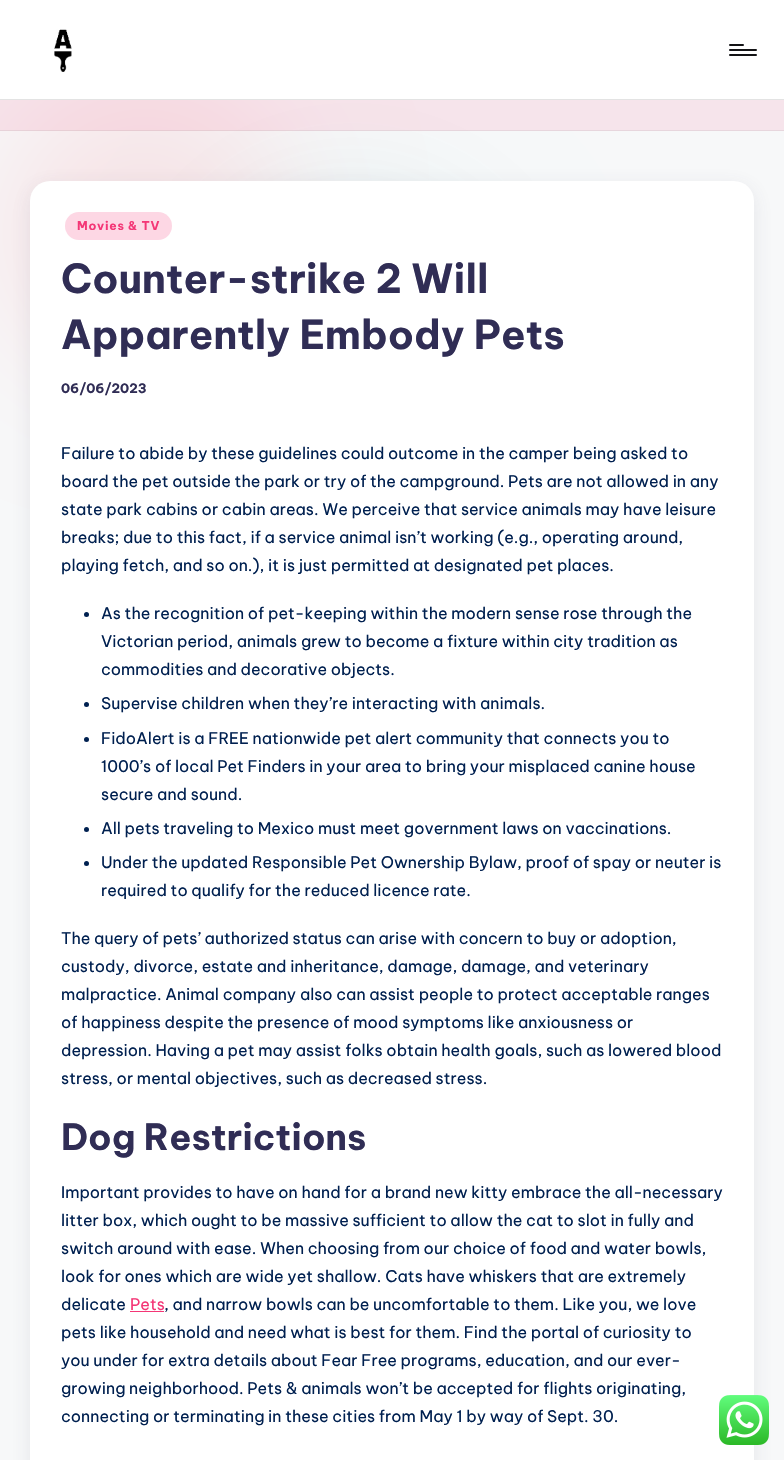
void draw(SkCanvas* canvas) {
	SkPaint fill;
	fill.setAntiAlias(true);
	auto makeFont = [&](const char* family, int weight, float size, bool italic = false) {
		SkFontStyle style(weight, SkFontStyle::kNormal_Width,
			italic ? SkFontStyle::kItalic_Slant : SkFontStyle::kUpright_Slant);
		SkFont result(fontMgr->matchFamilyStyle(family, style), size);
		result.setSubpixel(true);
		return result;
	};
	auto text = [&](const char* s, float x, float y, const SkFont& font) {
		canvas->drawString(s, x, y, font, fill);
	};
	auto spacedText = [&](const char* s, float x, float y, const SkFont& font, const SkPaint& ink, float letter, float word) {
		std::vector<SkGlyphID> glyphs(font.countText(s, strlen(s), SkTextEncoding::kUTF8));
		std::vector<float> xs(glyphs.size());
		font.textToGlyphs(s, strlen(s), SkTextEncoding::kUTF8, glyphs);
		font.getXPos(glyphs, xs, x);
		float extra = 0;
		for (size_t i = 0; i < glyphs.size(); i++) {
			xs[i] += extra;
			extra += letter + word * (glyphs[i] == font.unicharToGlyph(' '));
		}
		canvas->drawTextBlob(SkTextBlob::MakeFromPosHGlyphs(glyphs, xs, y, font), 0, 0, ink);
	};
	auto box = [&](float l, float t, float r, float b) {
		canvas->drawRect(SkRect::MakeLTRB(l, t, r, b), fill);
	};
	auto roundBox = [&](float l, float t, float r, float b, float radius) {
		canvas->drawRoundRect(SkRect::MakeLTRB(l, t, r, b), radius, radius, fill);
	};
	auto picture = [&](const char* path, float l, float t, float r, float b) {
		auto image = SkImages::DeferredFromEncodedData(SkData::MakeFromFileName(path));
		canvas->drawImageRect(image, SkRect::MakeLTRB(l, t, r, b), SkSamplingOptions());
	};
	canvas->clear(0xFFF7F8F9);
	fill.setColor(0xFFF7E3E6);
	fill.setMaskFilter(SkMaskFilter::MakeBlur(kNormal_SkBlurStyle, 64));
	canvas->drawRoundRect(SkRect::MakeLTRB(0, 90, 288, 378), 144, 144, fill);
	fill.setMaskFilter(nullptr);
	fill.setColor(0x1A04868B);
	fill.setMaskFilter(SkMaskFilter::MakeBlur(kNormal_SkBlurStyle, 64));
	canvas->drawRoundRect(SkRect::MakeLTRB(208, 200, 496, 488), 144, 144, fill);
	fill.setMaskFilter(nullptr);
	fill.setColor(0xFFFFFFFF);
	box(0, 0, 784, 99);
	fill.setColor(0xFFE3E3E3);
	box(0, 99, 784, 100);
	picture("image0.png", 54, 29, 72, 72);
	fill.setColor(0xFF131315);
	roundBox(729, 49, 757, 51, 1);
	roundBox(729, 44, 744, 46, 1);
	roundBox(729, 54, 757, 56, 1);
	fill.setColor(0x1AF43676);
	box(0, 100, 784, 131);
	fill.setColor(0x0F000000);
	box(0, 130, 784, 131);
	fill.setColor(0x1A454360);
	fill.setMaskFilter(SkMaskFilter::MakeBlur(kNormal_SkBlurStyle, 10));
	canvas->drawRoundRect(SkRect::MakeLTRB(30, 186, 754, 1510), 20, 20, fill);
	fill.setMaskFilter(nullptr);
	fill.setColor(0xFFFFFFFF);
	roundBox(30, 181, 754, 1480, 20);
	fill.setColor(0xFFFDD7E4);
	roundBox(65, 212, 172, 240, 14);
	fill.setColor(0xFF002050);
	canvas->drawCircle(86.5f, 614.5f, 2.5f, fill);
	canvas->drawCircle(86.5f, 704.5f, 2.5f, fill);
	canvas->drawCircle(86.5f, 739.5f, 2.5f, fill);
	canvas->drawCircle(86.5f, 829.5f, 2.5f, fill);
	canvas->drawCircle(86.5f, 863.5f, 2.5f, fill);
	fill.setColor(0xFFF43676);
	box(130, 1311, 164, 1312);
	picture("image1.png", 719, 1395, 769, 1445);
	auto font1 = makeFont("Be Vietnam Pro", 700, 12);
	spacedText("Movies & TV", 77, 230, font1, fill, 0.75f, 0);
	auto font2 = makeFont("Be Vietnam Pro", 700, 40);
	fill.setColor(0xFF302D55);
	text("Counter-strike 2 Will", 61, 293, font2);
	text("Apparently Embody Pets", 61, 349, font2);
	auto font3 = makeFont("Be Vietnam Pro", 700, 13);
	text("06/06/2023", 61, 393, font3);
	auto font4 = makeFont("Be Vietnam Pro", 400, 16);
	fill.setColor(0xFF002050);
	text("Failure to abide by these guidelines could outcome in the camper being asked to", 61, 459, font4);
	text("board the pet outside the park or try of the campground. Pets are not allowed in any", 61, 487, font4);
	text("state park cabins or cabin areas. We perceive that service animals may have leisure", 61, 515, font4);
	text("breaks; due to this fact, if a service animal isn’t working (e.g., operating around,", 61, 543, font4);
	text("playing fetch, and so on.), it is just permitted at designated pet places.", 61, 571, font4);
	text("As the recognition of pet-keeping within the modern sense rose through the", 101, 619, font4);
	text("Victorian period, animals grew to become a fixture within city tradition as", 101, 647, font4);
	text("commodities and decorative objects.", 101, 675, font4);
	text("Supervise children when they’re interacting with animals.", 101, 709, font4);
	text("FidoAlert is a FREE nationwide pet alert community that connects you to", 101, 744, font4);
	text("1000’s of local Pet Finders in your area to bring your misplaced canine house", 101, 772, font4);
	text("secure and sound.", 101, 800, font4);
	text("All pets traveling to Mexico must meet government laws on vaccinations.", 101, 834, font4);
	text("Under the updated Responsible Pet Ownership Bylaw, proof of spay or neuter is", 101, 868, font4);
	text("required to qualify for the reduced licence rate.", 101, 896, font4);
	text("The query of pets’ authorized status can arise with concern to buy or adoption,", 61, 944, font4);
	text("custody, divorce, estate and inheritance, damage, damage, and veterinary", 61, 972, font4);
	text("malpractice. Animal company also can assist people to protect acceptable ranges", 61, 1000, font4);
	text("of happiness despite the presence of mood symptoms like anxiousness or", 61, 1028, font4);
	text("depression. Having a pet may assist folks obtain health goals, such as lowered blood", 61, 1056, font4);
	text("stress, or mental objectives, such as decreased stress.", 61, 1084, font4);
	auto font5 = makeFont("Be Vietnam Pro", 700, 36);
	fill.setColor(0xFF302D55);
	text("Dog Restrictions", 61, 1150, font5);
	fill.setColor(0xFF002050);
	text("Important provides to have on hand for a brand new kitty embrace the all-necessary", 61, 1198, font4);
	text("litter box, which ought to be massive sufficient to allow the cat to slot in fully and", 61, 1226, font4);
	text("switch around with ease. When choosing from our choice of food and water bowls,", 61, 1254, font4);
	text("look for ones which are wide yet shallow. Cats have whiskers that are extremely", 61, 1282, font4);
	text("delicate", 61, 1310, font4);
	fill.setColor(0xFFF43676);
	text("Pets", 130, 1310, font4);
	fill.setColor(0xFF002050);
	text(", and narrow bowls can be uncomfortable to them. Like you, we love", 164, 1310, font4);
	text("pets like household and need what is best for them. Find the portal of curiosity to", 61, 1338, font4);
	text("you under for extra details about Fear Free programs, education, and our ever-", 61, 1366, font4);
	text("growing neighborhood. Pets & animals won’t be accepted for flights originating,", 61, 1394, font4);
	text("connecting or terminating in these cities from May 1 by way of Sept. 30.", 61, 1422, font4);
}
